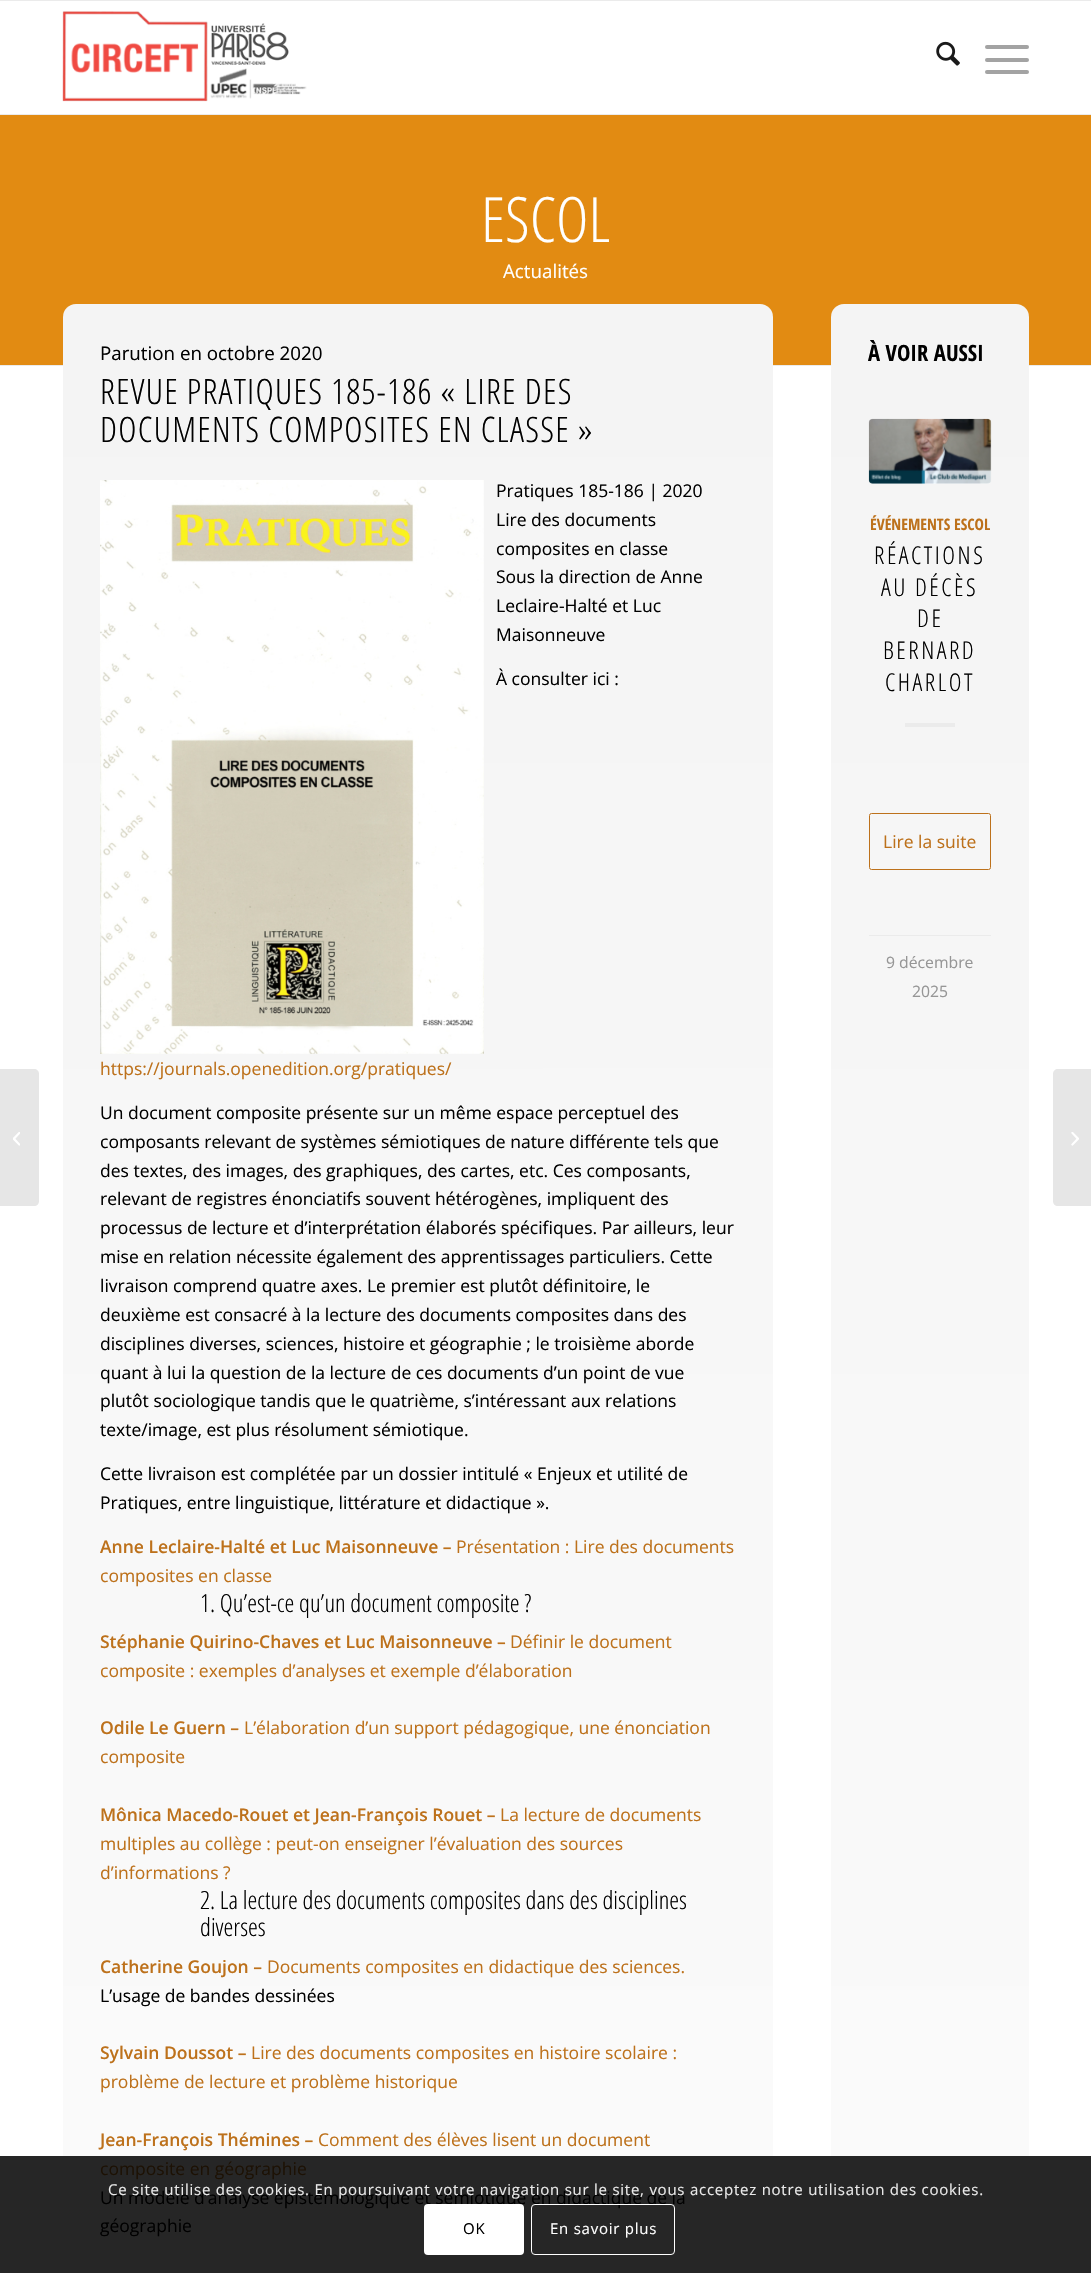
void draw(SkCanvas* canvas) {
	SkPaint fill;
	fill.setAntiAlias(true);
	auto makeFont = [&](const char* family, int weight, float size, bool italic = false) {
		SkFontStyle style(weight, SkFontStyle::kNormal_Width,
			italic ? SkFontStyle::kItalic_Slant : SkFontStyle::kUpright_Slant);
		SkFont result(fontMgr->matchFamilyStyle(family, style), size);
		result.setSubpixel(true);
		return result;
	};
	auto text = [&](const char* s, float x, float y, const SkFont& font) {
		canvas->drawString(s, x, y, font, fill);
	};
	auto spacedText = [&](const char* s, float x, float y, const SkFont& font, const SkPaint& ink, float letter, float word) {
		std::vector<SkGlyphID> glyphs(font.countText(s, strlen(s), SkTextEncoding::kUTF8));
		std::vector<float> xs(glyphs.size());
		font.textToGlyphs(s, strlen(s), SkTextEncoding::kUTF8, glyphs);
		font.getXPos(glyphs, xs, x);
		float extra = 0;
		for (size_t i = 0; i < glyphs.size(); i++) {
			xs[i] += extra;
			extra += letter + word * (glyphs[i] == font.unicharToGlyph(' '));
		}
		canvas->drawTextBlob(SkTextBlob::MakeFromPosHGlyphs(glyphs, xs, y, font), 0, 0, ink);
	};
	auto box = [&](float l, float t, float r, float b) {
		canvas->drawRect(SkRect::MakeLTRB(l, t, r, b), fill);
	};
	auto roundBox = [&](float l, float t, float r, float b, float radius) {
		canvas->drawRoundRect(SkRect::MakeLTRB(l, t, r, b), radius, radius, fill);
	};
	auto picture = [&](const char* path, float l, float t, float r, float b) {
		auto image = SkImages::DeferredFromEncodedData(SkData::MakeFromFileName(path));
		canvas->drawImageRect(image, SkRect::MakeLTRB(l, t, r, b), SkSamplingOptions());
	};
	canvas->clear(0xFFFFFFFF);
	fill.setColor(0xFF262626);
	box(0, 2156, 1091, 2273);
	fill.setColor(0xFFEBEBEB);
	box(0, 0, 1091, 1);
	box(0, 114, 1091, 115);
	picture("image0.png", 62, 11, 307, 102);
	picture("image1.png", 936, 41, 960, 66);
	fill.setColor(0xFFA3A3A3);
	roundBox(985, 58, 1029, 62, 2);
	roundBox(985, 45, 1029, 49, 2);
	roundBox(985, 70, 1029, 74, 2);
	fill.setColor(0xFFE6E6E6);
	canvas->drawPath(SkPathBuilder().moveTo(0, 1069).lineTo(34, 1069).cubicTo(37, 1069, 39, 1071, 39, 1074).lineTo(39, 1201).cubicTo(39, 1204, 37, 1206, 34, 1206).lineTo(0, 1206).close().detach(), fill);
	picture("image2.png", 13, 1132, 20, 1146);
	fill.setColor(0xFFE28B12);
	box(0, 115, 1091, 365);
	fill.setColor(0xFFEBEBEB);
	box(0, 365, 1091, 366);
	{
		const SkColor colors[] = {0xFFF4F4F4, 0xFFFFFFFF};
		const float stops[] = {0, 1};
		const SkPoint ends[] = {{417, 304}, {418, 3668}};
		fill.setShader(SkGradientShader::MakeLinear(ends, colors, stops, 2, SkTileMode::kClamp));
		fill.setAlpha(255);
	}
	roundBox(63, 304, 773, 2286, 13);
	{
		const SkColor colors[] = {0xFF252525, 0xFF262626};
		const float stops[] = {0, 1};
		const SkPoint ends[] = {{417, 304}, {418, 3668}};
		fill.setShader(SkGradientShader::MakeLinear(ends, colors, stops, 2, SkTileMode::kClamp));
		fill.setAlpha(255);
	}
	box(63, 2156, 773, 2273);
	picture("image3.png", 100, 480, 484, 1054);
	{
		const SkColor colors[] = {0xFFF4F4F4, 0xFFFFFFFF};
		const float stops[] = {0, 1};
		const SkPoint ends[] = {{930, 304}, {930, 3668}};
		fill.setShader(SkGradientShader::MakeLinear(ends, colors, stops, 2, SkTileMode::kClamp));
		fill.setAlpha(255);
	}
	roundBox(831, 304, 1029, 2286, 13);
	{
		const SkColor colors[] = {0xFF252525, 0xFF262626};
		const float stops[] = {0, 1};
		const SkPoint ends[] = {{930, 304}, {930, 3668}};
		fill.setShader(SkGradientShader::MakeLinear(ends, colors, stops, 2, SkTileMode::kClamp));
		fill.setAlpha(255);
	}
	box(831, 2156, 1029, 2273);
	fill.setShader(nullptr);
	fill.setColor(0xFFFFFFFF);
	roundBox(869, 419, 991, 484, 4);
	picture("image4.png", 868, 418, 992, 484);
	fill.setColor(0xFFEBEBEB);
	box(905, 723, 955, 727);
	fill.setStyle(SkPaint::kStroke_Style);
	fill.setStrokeWidth(1);
	fill.setColor(0xFFBD711B);
	canvas->drawRoundRect(SkRect::MakeLTRB(869.5f, 813.5f, 990.5f, 869.5f), 2, 2, fill);
	fill.setStyle(SkPaint::kFill_Style);
	fill.setColor(0xFFEBEBEB);
	box(869, 935, 991, 936);
	fill.setColor(0xFFE6E6E6);
	canvas->drawPath(SkPathBuilder().moveTo(1058, 1069).lineTo(1091, 1069).lineTo(1091, 1206).lineTo(1058, 1206).cubicTo(1055, 1206, 1053, 1204, 1053, 1201).lineTo(1053, 1074).cubicTo(1053, 1071, 1055, 1069, 1058, 1069).close().detach(), fill);
	picture("image5.png", 1071, 1132, 1079, 1146);
	auto font1 = makeFont("Open Sans Condensed", 300, 62.5f);
	fill.setColor(0xFFFFFFFF);
	text("ESCOL", 481, 242, font1);
	auto font2 = makeFont("Open Sans", 400, 18.75f);
	text("Actualités", 503, 278, font2);
	fill.setColor(0xFF000000);
	text("Parution en octobre 2020", 100, 360, font2);
	auto font3 = makeFont("Open Sans Condensed", 300, 35);
	spacedText("REVUE PRATIQUES 185-186 « LIRE DES", 100, 404, font3, fill, 1.25f, 0);
	spacedText("DOCUMENTS COMPOSITES EN CLASSE »", 100, 442, font3, fill, 1.25f, 0);
	auto font4 = makeFont("Open Sans", 400, 17.5f);
	text("Pratiques 185-186 | 2020", 496, 497, font4);
	text("Lire des documents", 496, 526, font4);
	text("composites en classe", 496, 555, font4);
	text("Sous la direction de Anne", 496, 583, font4);
	text("Leclaire-Halté et Luc", 496, 612, font4);
	text("Maisonneuve", 496, 641, font4);
	text("À consulter ici :", 496, 685, font4);
	fill.setColor(0xFFBD711B);
	text("https://journals.openedition.org/pratiques/", 100, 1075, font4);
	fill.setColor(0xFF000000);
	text("Un document composite présente sur un même espace perceptuel des", 100, 1119, font4);
	text("composants relevant de systèmes sémiotiques de nature différente tels que", 100, 1148, font4);
	text("des textes, des images, des graphiques, des cartes, etc. Ces composants,", 100, 1177, font4);
	text("relevant de registres énonciatifs souvent hétérogènes, impliquent des", 100, 1205, font4);
	text("processus de lecture et d’interprétation élaborés spécifiques. Par ailleurs, leur", 100, 1234, font4);
	text("mise en relation nécessite également des apprentissages particuliers. Cette", 100, 1263, font4);
	text("livraison comprend quatre axes. Le premier est plutôt définitoire, le", 100, 1292, font4);
	text("deuxième est consacré à la lecture des documents composites dans des", 100, 1321, font4);
	text("disciplines diverses, sciences, histoire et géographie ; le troisième aborde", 100, 1350, font4);
	text("quant à lui la question de la lecture de ces documents d’un point de vue", 100, 1379, font4);
	text("plutôt sociologique tandis que le quatrième, s’intéressant aux relations", 100, 1407, font4);
	text("texte/image, est plus résolument sémiotique.", 100, 1436, font4);
	text("Cette livraison est complétée par un dossier intitulé « Enjeux et utilité de", 100, 1480, font4);
	text("Pratiques, entre linguistique, littérature et didactique ».", 100, 1509, font4);
	auto font5 = makeFont("Open Sans", 600, 17.5f);
	fill.setColor(0xFFBD711B);
	text("Anne Leclaire-Halté et Luc Maisonneuve –", 100, 1553, font5);
	text("Présentation : Lire des documents", 456, 1553, font4);
	text("composites en classe", 100, 1582, font4);
	auto font6 = makeFont("Open Sans Condensed", 300, 25);
	fill.setColor(0xFF000000);
	text("1. Qu’est-ce qu’un document composite ?", 200, 1612, font6);
	fill.setColor(0xFFBD711B);
	text("Stéphanie Quirino-Chaves et Luc Maisonneuve –", 100, 1648, font5);
	text("Définir le document", 510, 1648, font4);
	text("composite : exemples d’analyses et exemple d’élaboration", 100, 1677, font4);
	text("Odile Le Guern –", 100, 1734, font5);
	text("L’élaboration d’un support pédagogique, une énonciation", 244, 1734, font4);
	text("composite", 100, 1763, font4);
	text("Mônica Macedo-Rouet et Jean-François Rouet –", 100, 1821, font5);
	text("La lecture de documents", 500, 1821, font4);
	text("multiples au collège : peut-on enseigner l’évaluation des sources", 100, 1850, font4);
	text("d’informations ?", 100, 1879, font4);
	fill.setColor(0xFF000000);
	text("2. La lecture des documents composites dans des disciplines", 200, 1909, font6);
	text("diverses", 200, 1936, font6);
	fill.setColor(0xFFBD711B);
	text("Catherine Goujon –", 100, 1973, font5);
	text("Documents composites en didactique des sciences.", 267, 1973, font4);
	fill.setColor(0xFF000000);
	text("L’usage de bandes dessinées", 100, 2002, font4);
	fill.setColor(0xFFBD711B);
	text("Sylvain Doussot –", 100, 2059, font5);
	text("Lire des documents composites en histoire scolaire :", 251, 2059, font4);
	text("problème de lecture et problème historique", 100, 2088, font4);
	text("Jean-François Thémines –", 100, 2146, font5);
	text("Comment des élèves lisent un document", 318, 2146, font4);
	fill.setColor(0xFF1C1104);
	text("composite en géographie", 100, 2175, font4);
	fill.setColor(0xFF000000);
	text("Un modèle d’analyse épistémologique et sémiotique en didactique de la", 100, 2204, font4);
	text("géographie", 100, 2232, font4);
	auto font7 = makeFont("Open Sans Condensed", 700, 22.5f);
	text("À VOIR AUSSI", 868, 361, font7);
	auto font8 = makeFont("Open Sans Condensed", 700, 15.75f);
	fill.setColor(0xFFBD711B);
	text("ÉVÉNEMENTS ESCOL", 870, 530, font8);
	auto font9 = makeFont("Open Sans Condensed", 300, 24.5f);
	fill.setColor(0xFF000000);
	spacedText("RÉACTIONS", 874, 564, font9, fill, 2.5f, 0);
	spacedText("AU DÉCÈS", 881, 596, font9, fill, 2.5f, 0);
	spacedText("DE", 917, 627, font9, fill, 2.5f, 0);
	spacedText("BERNARD", 883, 659, font9, fill, 2.5f, 0);
	spacedText("CHARLOT", 885, 691, font9, fill, 2.5f, 0);
	fill.setColor(0xFFBD711B);
	text("Lire la suite", 883, 848, font4);
	auto font10 = makeFont("Open Sans", 400, 15.75f);
	fill.setColor(0xFF969696);
	text("9 décembre", 886, 968, font10);
	text("2025", 912, 997, font10);
	auto font11 = makeFont("Open Sans", 400, 15);
	fill.setColor(0xFFE9E9E9);
	spacedText("Ce site utilise des cookies. En poursuivant votre navigation sur le site, vous acceptez notre utilisation des cookies.", 108, 2195, font11, fill, 0.75f, 0);
	fill.setColor(0xFFFFFFFF);
	roundBox(424, 2204, 524, 2255, 4);
	fill.setColor(0xFF000000);
	spacedText("OK", 463, 2234, font11, fill, 0.75f, 0);
	fill.setStyle(SkPaint::kStroke_Style);
	fill.setColor(0xFFFFFFFF);
	canvas->drawRoundRect(SkRect::MakeLTRB(531.5f, 2204.5f, 674.5f, 2254.5f), 3.5f, 3.5f, fill);
	fill.setStyle(SkPaint::kFill_Style);
	spacedText("En savoir plus", 550, 2234, font11, fill, 0.75f, 0);
}
